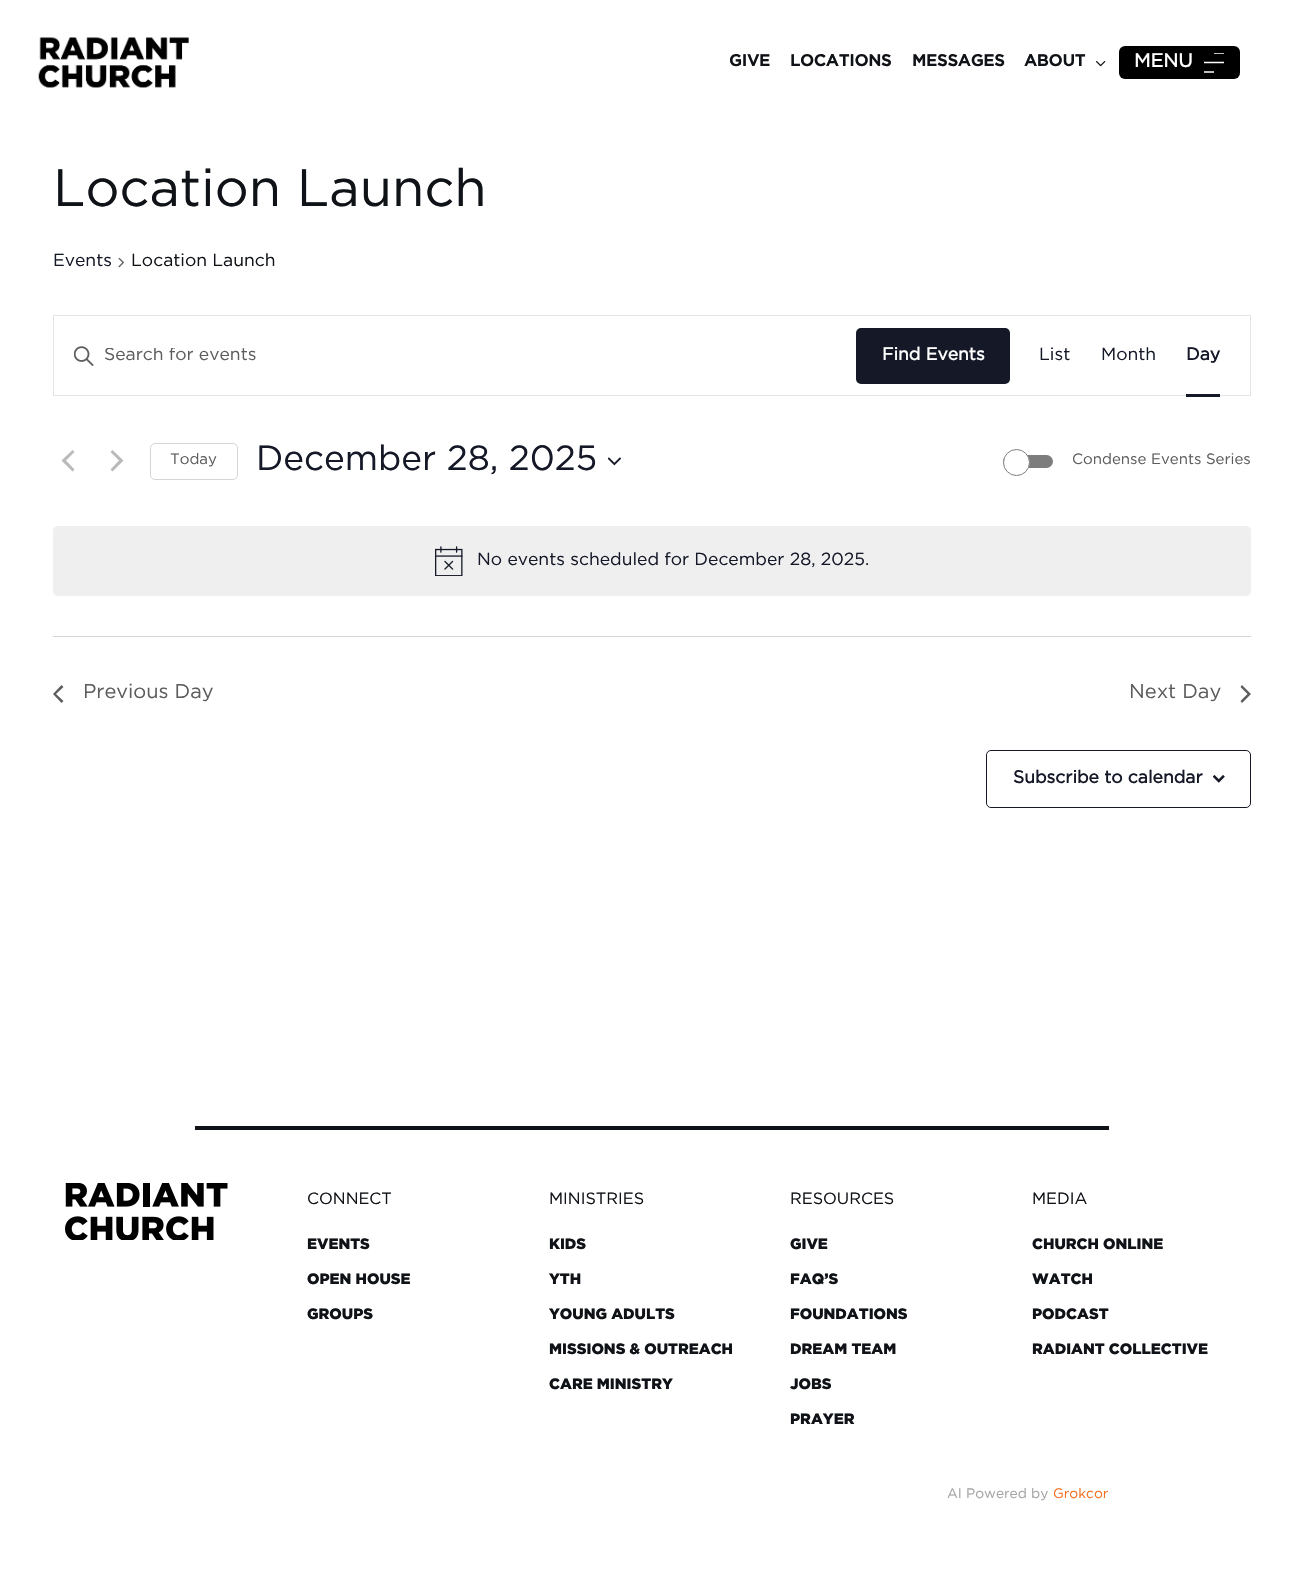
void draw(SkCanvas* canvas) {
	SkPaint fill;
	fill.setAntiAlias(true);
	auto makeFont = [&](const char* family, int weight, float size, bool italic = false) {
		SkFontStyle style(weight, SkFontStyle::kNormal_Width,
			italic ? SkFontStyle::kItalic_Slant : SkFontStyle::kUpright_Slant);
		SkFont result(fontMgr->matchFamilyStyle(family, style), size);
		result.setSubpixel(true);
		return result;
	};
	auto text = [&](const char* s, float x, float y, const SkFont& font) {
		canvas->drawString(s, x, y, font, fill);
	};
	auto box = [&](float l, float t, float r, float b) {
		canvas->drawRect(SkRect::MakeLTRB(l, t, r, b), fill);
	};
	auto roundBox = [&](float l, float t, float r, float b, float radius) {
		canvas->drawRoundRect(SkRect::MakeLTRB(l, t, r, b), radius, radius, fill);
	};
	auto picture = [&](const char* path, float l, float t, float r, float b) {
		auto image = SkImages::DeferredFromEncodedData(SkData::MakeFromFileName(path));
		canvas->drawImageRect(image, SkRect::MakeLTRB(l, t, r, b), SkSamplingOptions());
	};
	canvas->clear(0xFFFFFFFF);
	picture("image0.png", 38, 37, 189, 88);
	picture("image1.png", 1096, 61, 1106, 67);
	fill.setColor(0xFF000000);
	roundBox(1119, 46, 1240, 79, 6);
	fill.setColor(0xFFBFBFBF);
	box(1214, 53, 1224, 54);
	fill.setStyle(SkPaint::kStroke_Style);
	fill.setStrokeWidth(1.5f);
	fill.setColor(0xFFFFFFFF);
	canvas->drawPath(SkPathBuilder().moveTo(1204, 62.5f).lineTo(1224, 62.5f).detach(), fill);
	fill.setStyle(SkPaint::kFill_Style);
	fill.setColor(0xFFBFBFBF);
	box(1204, 71, 1214, 73);
	picture("image2.png", 118, 258, 125, 268);
	fill.setStyle(SkPaint::kStroke_Style);
	fill.setStrokeWidth(1);
	fill.setColor(0xFFE4E4E4);
	canvas->drawRect(SkRect::MakeLTRB(53.5f, 315.5f, 1250.5f, 395.5f), fill);
	picture("image3.png", 74, 346, 94, 366);
	fill.setStyle(SkPaint::kFill_Style);
	fill.setColor(0xFF141827);
	roundBox(856, 328, 1010, 384, 5);
	box(1186, 394, 1220, 397);
	fill.setColor(0xFFBABABA);
	canvas->drawPath(SkPathBuilder().moveTo(74.5f, 469.5f).lineTo(72.5f, 471.5f).lineTo(61.5f, 460.5f).lineTo(72.5f, 450).lineTo(74.5f, 452).lineTo(66, 460.5f).close().moveTo(110.5f, 452).lineTo(112.5f, 450).lineTo(123.5f, 460.5f).lineTo(112.5f, 471.5f).lineTo(110.5f, 469.5f).lineTo(119, 460.5f).close().detach(), fill);
	fill.setStyle(SkPaint::kStroke_Style);
	fill.setColor(0xFFD5D5D5);
	canvas->drawRoundRect(SkRect::MakeLTRB(150.5f, 443.5f, 237.5f, 479.5f), 4.5f, 4.5f, fill);
	picture("image4.png", 608, 457, 621, 466);
	fill.setStyle(SkPaint::kFill_Style);
	fill.setColor(0xFF7D7D7D);
	roundBox(1003, 455, 1053, 468, 6.5f);
	fill.setColor(0xFFFFFFFF);
	canvas->drawCircle(1016.5f, 462.5f, 13, fill);
	fill.setStyle(SkPaint::kStroke_Style);
	fill.setColor(0xFF7D7D7D);
	canvas->drawCircle(1016.5f, 462.5f, 13, fill);
	fill.setStyle(SkPaint::kFill_Style);
	fill.setColor(0xFFEFEFF0);
	roundBox(53, 526, 1251, 596, 5);
	picture("image5.png", 435, 546, 463, 576);
	fill.setColor(0xFFD5D5D5);
	box(53, 636, 1251, 637);
	fill.setColor(0xFF5D5D5D);
	canvas->drawPath(SkPathBuilder().moveTo(63.5f, 701).lineTo(61.5f, 703).lineTo(53, 694).lineTo(61.5f, 685).lineTo(63.5f, 687).lineTo(56, 694).close().detach(), fill);
	canvas->drawPath(SkPathBuilder().moveTo(1240.5f, 687).lineTo(1242, 685).lineTo(1251, 694).lineTo(1242, 703).lineTo(1240.5f, 701).lineTo(1247.5f, 694).close().detach(), fill);
	fill.setStyle(SkPaint::kStroke_Style);
	fill.setColor(0xFF141827);
	canvas->drawRoundRect(SkRect::MakeLTRB(986.5f, 750.5f, 1250.5f, 807.5f), 4.5f, 4.5f, fill);
	picture("image6.png", 1213, 775, 1225, 783);
	fill.setStyle(SkPaint::kFill_Style);
	fill.setColor(0xFF0F1217);
	box(195, 1126, 1109, 1130);
	picture("image7.png", 65, 1183, 228, 1240);
	auto font1 = makeFont("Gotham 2", 700, 16.25f);
	text("GIVE", 729, 66, font1);
	text("LOCATIONS", 790, 66, font1);
	text("MESSAGES", 912, 66, font1);
	text("ABOUT", 1024, 66, font1);
	auto font2 = makeFont("Gotham", 700, 19);
	fill.setColor(0xFFFFFFFF);
	text("MENU", 1134, 67, font2);
	auto font3 = makeFont("Gotham", 400, 52.5f);
	fill.setColor(0xFF0F1217);
	text("Location Launch", 53, 206, font3);
	auto font4 = makeFont("Gotham", 400, 17.5f);
	fill.setColor(0xFF141827);
	text("Events", 53, 266, font4);
	fill.setColor(0xFF0F1217);
	text("Location Launch", 131, 266, font4);
	canvas->save();
	canvas->clipRect(SkRect::MakeLTRB(104, 348, 831, 364));
	fill.setColor(0xFF5D5D5D);
	text("Search for events", 104, 360, font4);
	canvas->restore();
	auto font5 = makeFont("Gotham", 700, 17.5f);
	fill.setColor(0xFFFFFFFF);
	text("Find Events", 882, 360, font5);
	fill.setColor(0xFF141827);
	text("List", 1039, 360, font4);
	text("Month", 1101, 360, font4);
	text("Day", 1186, 360, font5);
	auto font6 = makeFont("Gotham", 400, 15);
	fill.setColor(0xFF5D5D5D);
	text("Today", 170, 464, font6);
	auto font7 = makeFont("Gotham", 400, 35);
	fill.setColor(0xFF141827);
	text("December 28, 2025", 256, 470, font7);
	fill.setColor(0xFF5D5D5D);
	text("Condense Events Series", 1072, 464, font6);
	fill.setColor(0xFF141827);
	text("No events scheduled for December 28, 2025.", 477, 565, font4);
	auto font8 = makeFont("Gotham", 400, 20);
	fill.setColor(0xFF5D5D5D);
	text("Previous Day", 83, 698, font8);
	text("Next Day", 1129, 698, font8);
	fill.setColor(0xFF141827);
	text("Subscribe to calendar", 1013, 783, font5);
	auto font9 = makeFont("Gotham", 400, 16.25f);
	fill.setColor(0xFF0F1217);
	text("CONNECT", 307, 1204, font9);
	auto font10 = makeFont("Gotham", 900, 15);
	text("EVENTS", 307, 1249, font10);
	text("OPEN HOUSE", 307, 1284, font10);
	text("GROUPS", 307, 1319, font10);
	text("MINISTRIES", 549, 1204, font9);
	text("KIDS", 549, 1249, font10);
	text("YTH", 549, 1284, font10);
	text("YOUNG ADULTS", 549, 1319, font10);
	text("MISSIONS & OUTREACH", 549, 1354, font10);
	text("CARE MINISTRY", 549, 1389, font10);
	text("RESOURCES", 790, 1204, font9);
	text("GIVE", 790, 1249, font10);
	text("FAQ’S", 790, 1284, font10);
	text("FOUNDATIONS", 790, 1319, font10);
	text("DREAM TEAM", 790, 1354, font10);
	text("JOBS", 790, 1389, font10);
	text("PRAYER", 790, 1424, font10);
	text("MEDIA", 1032, 1204, font9);
	text("CHURCH ONLINE", 1032, 1249, font10);
	text("WATCH", 1032, 1284, font10);
	text("PODCAST", 1032, 1319, font10);
	text("RADIANT COLLECTIVE", 1032, 1354, font10);
	auto font11 = makeFont("Gotham", 400, 13.75f);
	fill.setColor(0xFFA5A5A5);
	text("AI Powered by", 947, 1498, font11);
	fill.setColor(0xFFF37020);
	text("Grokcor", 1053, 1498, font11);
}
